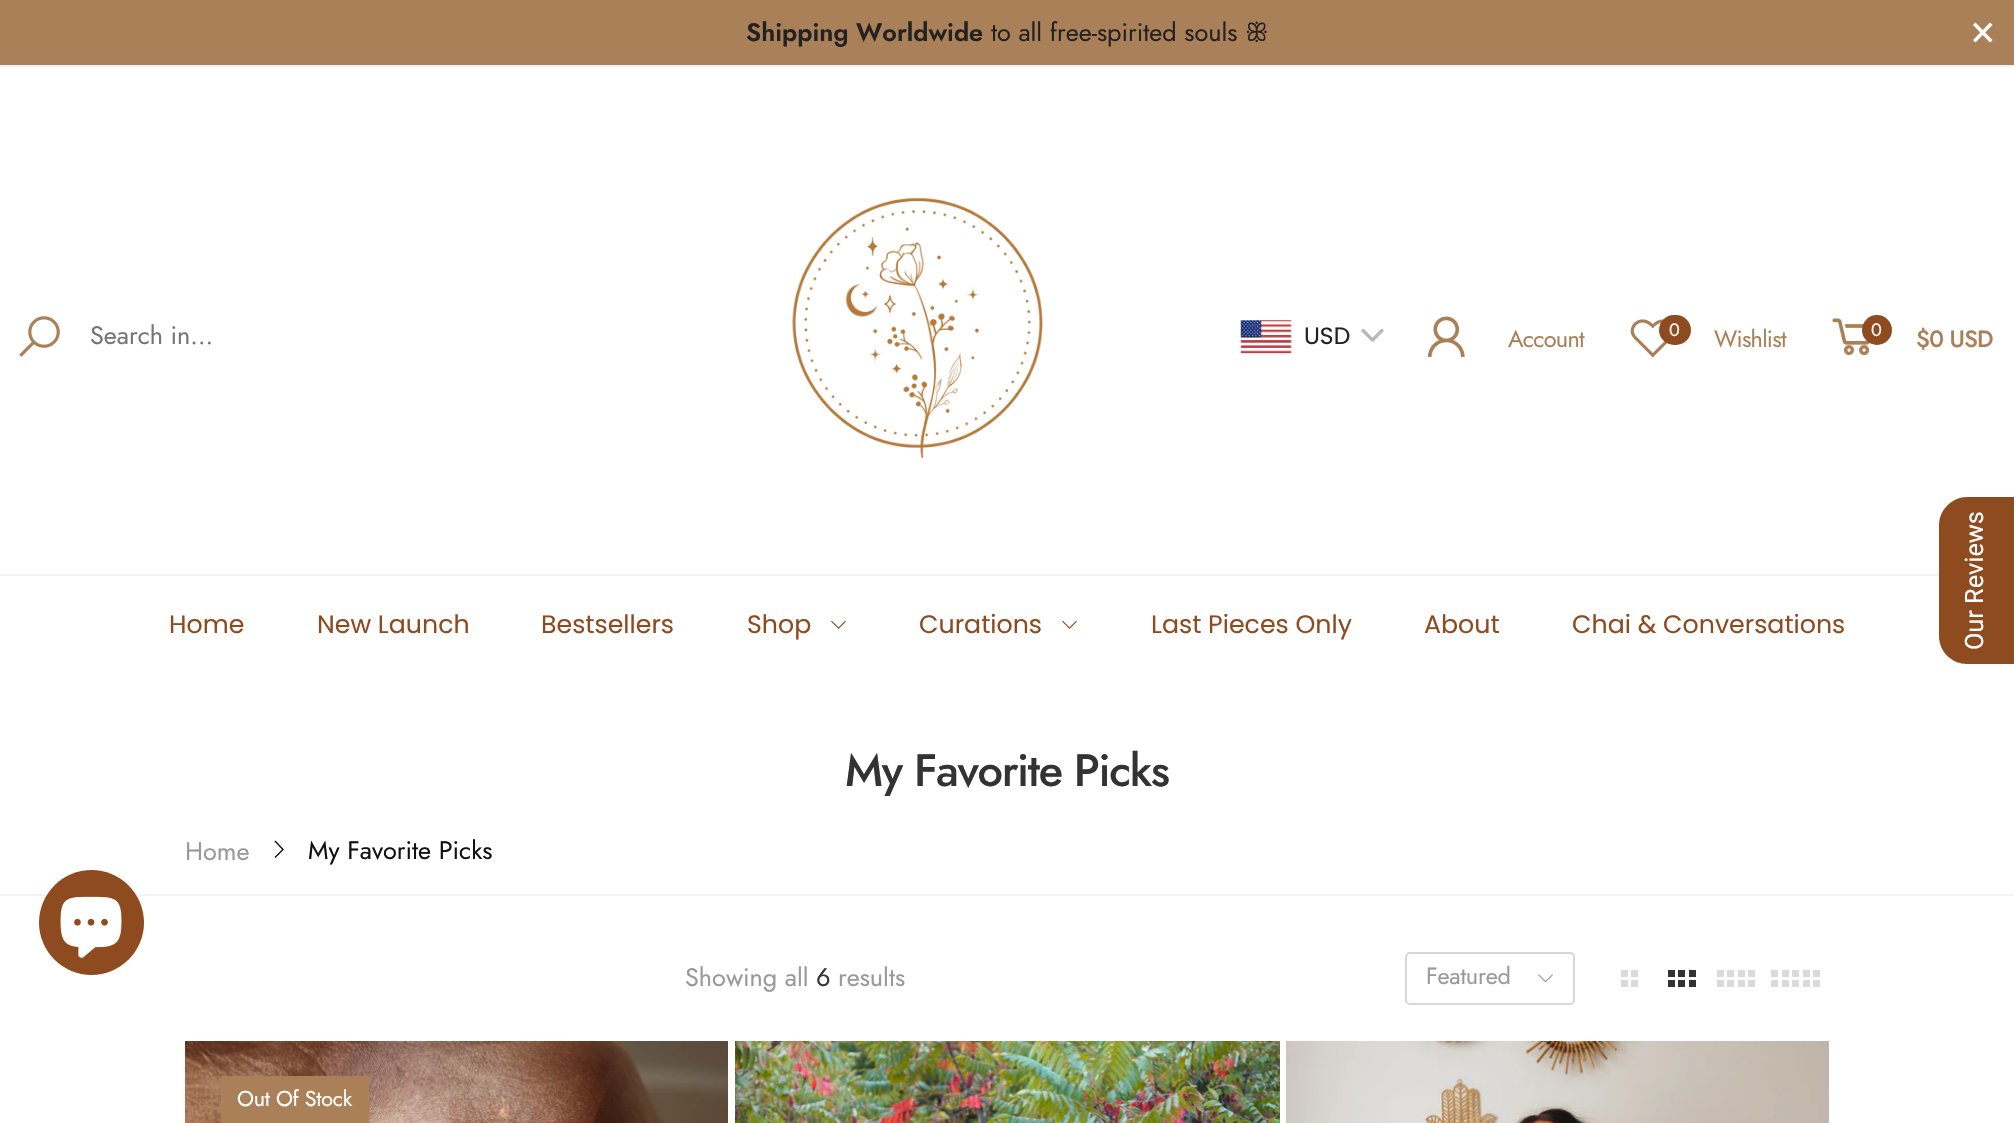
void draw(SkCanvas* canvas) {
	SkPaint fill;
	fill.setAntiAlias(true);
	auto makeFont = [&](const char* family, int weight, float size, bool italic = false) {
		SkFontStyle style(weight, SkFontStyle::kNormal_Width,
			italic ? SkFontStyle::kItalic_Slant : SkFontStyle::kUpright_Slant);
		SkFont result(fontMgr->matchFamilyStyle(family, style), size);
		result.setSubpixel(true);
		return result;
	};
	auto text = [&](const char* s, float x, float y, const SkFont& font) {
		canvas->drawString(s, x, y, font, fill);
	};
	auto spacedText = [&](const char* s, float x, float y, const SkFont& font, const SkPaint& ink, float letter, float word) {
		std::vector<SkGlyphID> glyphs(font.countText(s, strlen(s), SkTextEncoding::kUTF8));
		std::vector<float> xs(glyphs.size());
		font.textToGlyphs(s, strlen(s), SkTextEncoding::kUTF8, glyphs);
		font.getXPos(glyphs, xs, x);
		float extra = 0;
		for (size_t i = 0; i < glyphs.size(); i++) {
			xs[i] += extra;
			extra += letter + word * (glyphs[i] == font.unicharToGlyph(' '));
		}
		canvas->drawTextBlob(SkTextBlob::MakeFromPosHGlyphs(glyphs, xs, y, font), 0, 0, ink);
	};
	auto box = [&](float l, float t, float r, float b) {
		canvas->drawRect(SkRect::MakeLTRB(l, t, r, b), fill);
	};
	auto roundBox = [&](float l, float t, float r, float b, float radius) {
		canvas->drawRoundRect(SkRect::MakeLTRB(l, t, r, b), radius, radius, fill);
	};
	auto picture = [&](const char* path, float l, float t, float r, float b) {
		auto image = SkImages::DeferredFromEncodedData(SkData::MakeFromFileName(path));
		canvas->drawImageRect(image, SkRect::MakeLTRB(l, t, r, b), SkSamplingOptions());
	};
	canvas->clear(0xFFFFFFFF);
	fill.setColor(0xFFAA8058);
	box(0, 0, 2014, 65);
	fill.setColor(0xFFFFFFFF);
	canvas->drawPath(SkPathBuilder().moveTo(1975.5f, 22.5f).lineTo(1992.5f, 40).lineTo(1990, 42.5f).lineTo(1973, 25).close().detach(), fill);
	canvas->drawPath(SkPathBuilder().moveTo(1973, 40).lineTo(1990, 22.5f).lineTo(1992.5f, 25).lineTo(1975.5f, 42.5f).close().detach(), fill);
	fill.setColor(0xFFEFF1F3);
	box(0, 65, 2014, 67);
	picture("image0.png", 19, 316, 60, 357);
	picture("image1.png", 792, 197, 1043, 458);
	picture("image2.png", 1240, 320, 1292, 354);
	fill.setStyle(SkPaint::kStroke_Style);
	fill.setStrokeWidth(3.2f);
	fill.setStrokeCap(SkPaint::kRound_Cap);
	fill.setStrokeJoin(SkPaint::kRound_Join);
	fill.setColor(0xFFB7B7B7);
	canvas->drawPath(SkPathBuilder().moveTo(1363, 330.5f).lineTo(1372.5f, 340).lineTo(1382, 330.5f).detach(), fill);
	picture("image3.png", 1427, 316, 1465, 357);
	picture("image4.png", 1630, 319, 1668, 358);
	fill.setStyle(SkPaint::kFill_Style);
	fill.setColor(0xFF8E4B20);
	roundBox(1659, 315, 1691, 345, 15);
	picture("image5.png", 1832, 318, 1870, 356);
	canvas->drawCircle(1877, 330, 15, fill);
	fill.setColor(0xFFEFF1F3);
	box(0, 574, 1939, 576);
	picture("image6.png", 831, 620, 846, 629);
	picture("image6.png", 1062, 620, 1077, 629);
	fill.setColor(0xFF111111);
	canvas->drawPath(SkPathBuilder().moveTo(275.5f, 840.5f).lineTo(284, 849.5f).lineTo(275.5f, 858).lineTo(274.5f, 857).lineTo(282, 849.5f).lineTo(274.5f, 841.5f).close().detach(), fill);
	fill.setColor(0xFFF4F4F4);
	box(0, 894, 2014, 896);
	fill.setStyle(SkPaint::kStroke_Style);
	fill.setStrokeWidth(2);
	fill.setStrokeCap(SkPaint::kButt_Cap);
	fill.setStrokeJoin(SkPaint::kMiter_Join);
	fill.setColor(0xFFD7D7D7);
	canvas->drawRoundRect(SkRect::MakeLTRB(1406, 953, 1574, 1004), 4, 4, fill);
	picture("image7.png", 1538, 974, 1553, 983);
	fill.setStyle(SkPaint::kFill_Style);
	fill.setColor(0xFFDADADA);
	box(1621, 970, 1628, 977);
	box(1631, 970, 1638, 977);
	box(1621, 980, 1628, 987);
	box(1631, 980, 1638, 987);
	fill.setColor(0xFF333333);
	box(1668, 970, 1675, 977);
	box(1678, 970, 1685, 977);
	box(1689, 970, 1696, 977);
	box(1668, 980, 1675, 987);
	box(1678, 980, 1685, 987);
	box(1689, 980, 1696, 987);
	fill.setColor(0xFFDADADA);
	box(1717, 970, 1724, 977);
	box(1727, 970, 1734, 977);
	box(1738, 970, 1745, 977);
	box(1748, 970, 1755, 977);
	box(1717, 980, 1724, 987);
	box(1727, 980, 1734, 987);
	box(1738, 980, 1745, 987);
	box(1748, 980, 1755, 987);
	box(1771, 970, 1778, 977);
	box(1782, 970, 1789, 977);
	box(1792, 970, 1799, 977);
	box(1803, 970, 1810, 977);
	box(1813, 970, 1820, 977);
	box(1771, 980, 1778, 987);
	box(1782, 980, 1789, 987);
	box(1792, 980, 1799, 987);
	box(1803, 980, 1810, 987);
	box(1813, 980, 1820, 987);
	picture("image8.png", 185, 1041, 728, 1123);
	fill.setColor(0xFFAA8058);
	box(221, 1076, 369, 1123);
	picture("image9.png", 735, 1041, 1280, 1123);
	picture("image10.png", 1286, 1041, 1829, 1123);
	fill.setColor(0xFF8E4B20);
	canvas->drawPath(SkPathBuilder().moveTo(1939, 636).lineTo(1939, 525).cubicTo(1939, 510, 1952, 497, 1967, 497).lineTo(2014, 497).lineTo(2014, 664).lineTo(1967, 664).cubicTo(1952, 664, 1939, 652, 1939, 636).close().detach(), fill);
	canvas->drawCircle(91.5f, 922.5f, 52.5f, fill);
	picture("image11.png", 60, 896, 122, 958);
	auto font1 = makeFont("Jost", 600, 25.25f);
	fill.setColor(0xFF222222);
	text("Shipping Worldwide", 746, 41, font1);
	auto font2 = makeFont("Jost", 400, 25.25f);
	text("to all free-spirited souls", 991, 41, font2);
	auto font3 = makeFont("FreeSans", 400, 25.25f);
	text("ꕥ", 1245, 41, font3);
	fill.setColor(0xFF757575);
	text("Search in...", 90, 344, font2);
	auto font4 = makeFont("Poppins", 400, 23.5f);
	fill.setColor(0xFF222222);
	text("USD", 1304, 344, font4);
	auto font5 = makeFont("Jost", 400, 23.5f);
	fill.setColor(0xFFAA8058);
	spacedText("Account", 1508, 347, font5, fill, -0.75f, 0);
	auto font6 = makeFont("Jost", 400, 18);
	fill.setColor(0xFFFFFFFF);
	text("0", 1669, 336, font6);
	fill.setColor(0xFFAA8058);
	spacedText("Wishlist", 1714, 347, font5, fill, -0.75f, 0);
	fill.setColor(0xFFFFFFFF);
	text("0", 1871, 336, font6);
	auto font7 = makeFont("Jost", 500, 23.5f);
	fill.setColor(0xFFAA8058);
	spacedText("$0 USD", 1916, 347, font7, fill, -0.75f, 0);
	auto font8 = makeFont("Poppins", 400, 25.25f);
	fill.setColor(0xFF8E4B20);
	text("Home", 169, 633, font8);
	text("New Launch", 317, 633, font8);
	text("Bestsellers", 541, 633, font8);
	text("Shop", 747, 633, font8);
	text("Curations", 919, 633, font8);
	text("Last Pieces Only", 1151, 633, font8);
	text("About", 1424, 633, font8);
	text("Chai & Conversations", 1572, 633, font8);
	auto font9 = makeFont("Jost", 500, 45.25f);
	fill.setColor(0xFF333333);
	spacedText("My Favorite Picks", 845, 786, font9, fill, -1.4f, 0);
	fill.setColor(0xFF999999);
	text("Home", 185, 860, font2);
	fill.setColor(0xFF111111);
	text("My Favorite Picks", 308, 859, font2);
	fill.setColor(0xFF999999);
	text("Showing all", 685, 986, font2);
	fill.setColor(0xFF333333);
	text("6", 816, 986, font2);
	fill.setColor(0xFF999999);
	text("results", 838, 986, font2);
	spacedText("Featured", 1426, 984, font5, fill, -0.25f, 0);
	auto font10 = makeFont("Jost", 400, 21.5f);
	fill.setColor(0xFFFFFFFF);
	spacedText("Out Of Stock", 237, 1106, font10, fill, -0.25f, 0);
	auto font11 = makeFont("Roboto", 400, 25.25f);
	canvas->save();
	canvas->rotate(-90, 1983, 650);
	text("Our Reviews", 1983, 650, font11);
	canvas->restore();
}
